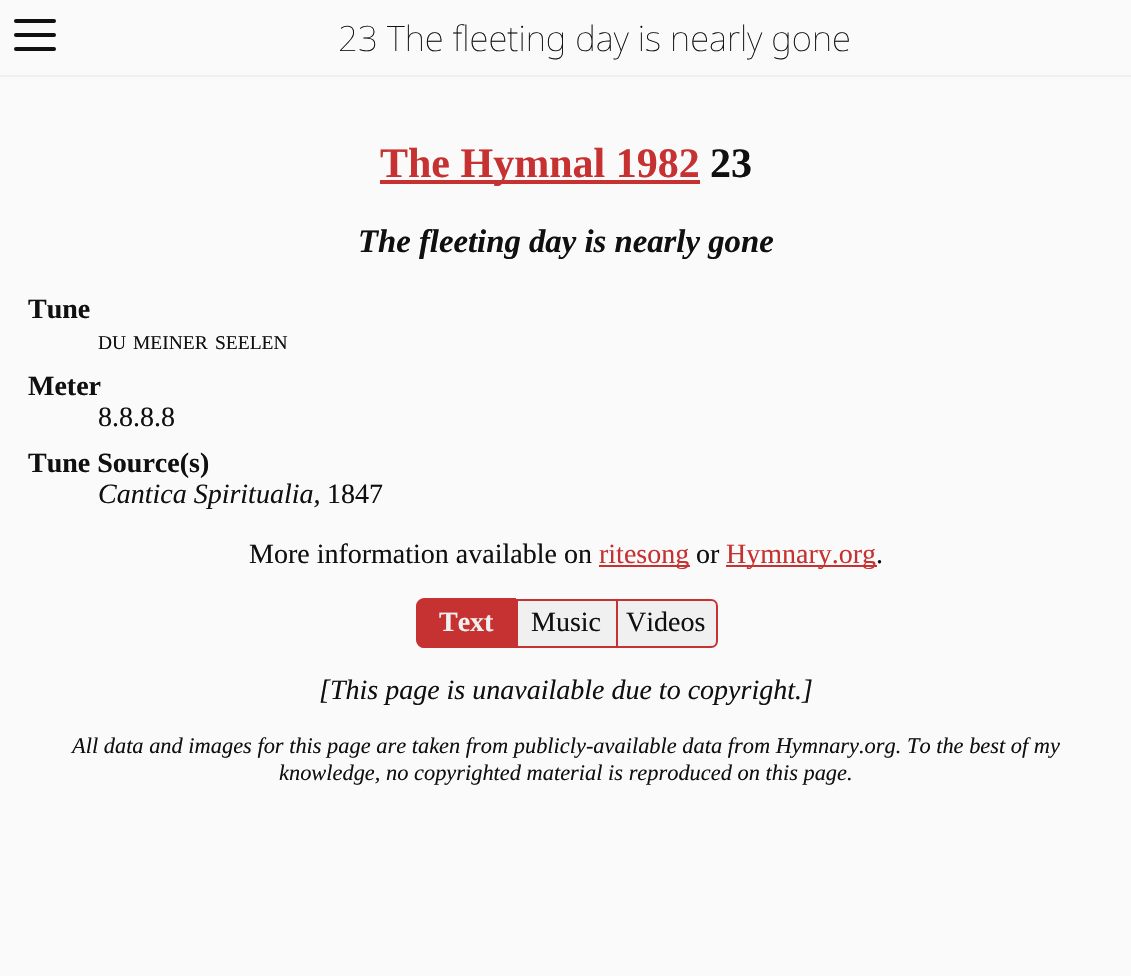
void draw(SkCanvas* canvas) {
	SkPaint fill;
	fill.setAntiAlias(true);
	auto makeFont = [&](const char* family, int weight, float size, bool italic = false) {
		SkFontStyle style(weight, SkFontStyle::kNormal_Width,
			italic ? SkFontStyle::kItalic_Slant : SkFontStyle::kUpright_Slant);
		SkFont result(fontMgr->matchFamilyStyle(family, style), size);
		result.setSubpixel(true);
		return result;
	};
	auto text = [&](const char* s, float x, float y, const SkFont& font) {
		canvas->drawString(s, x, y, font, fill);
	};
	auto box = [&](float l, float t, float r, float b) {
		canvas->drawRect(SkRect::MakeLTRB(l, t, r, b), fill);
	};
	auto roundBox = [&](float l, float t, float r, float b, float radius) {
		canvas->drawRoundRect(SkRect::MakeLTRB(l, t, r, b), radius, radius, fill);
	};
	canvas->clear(0xFFFAFAFA);
	fill.setColor(0xFF101010);
	roundBox(14, 19, 56, 23, 2);
	roundBox(14, 33, 56, 37, 2);
	roundBox(14, 47, 56, 51, 2);
	fill.setColor(0xFFF0F0F0);
	box(0, 75, 1131, 77);
	fill.setColor(0xFFC63232);
	box(380, 180, 700, 184);
	box(599, 565, 690, 567);
	box(726, 565, 877, 567);
	canvas->drawPath(SkPathBuilder().moveTo(424, 599).lineTo(516, 599).lineTo(516, 648).lineTo(424, 648).cubicTo(420, 648, 417, 645, 417, 641).lineTo(417, 606).cubicTo(417, 602, 420, 599, 424, 599).close().detach(), fill);
	canvas->drawPath(SkPathBuilder(SkPathFillType::kEvenOdd).moveTo(424, 598).lineTo(516, 598).lineTo(516, 648).lineTo(424, 648).cubicTo(420, 648, 416, 644, 416, 640).lineTo(416, 606).cubicTo(416, 602, 420, 598, 424, 598).close().moveTo(424, 600).lineTo(516, 600).lineTo(516, 646).lineTo(424, 646).cubicTo(421, 646, 418, 643, 418, 640).lineTo(418, 606).cubicTo(418, 603, 421, 600, 424, 600).close().detach(), fill);
	fill.setColor(0xFFF0F0F0);
	box(518, 601, 616, 646);
	fill.setColor(0xFFC63232);
	box(516, 599, 616, 601);
	box(516, 646, 616, 648);
	box(516, 599, 518, 648);
	fill.setColor(0xFFF0F0F0);
	canvas->drawPath(SkPathBuilder().moveTo(617, 600).lineTo(711, 600).cubicTo(714.5f, 600, 717, 602.5f, 717, 606).lineTo(717, 641).cubicTo(717, 644.5f, 714.5f, 647, 711, 647).lineTo(617, 647).close().detach(), fill);
	fill.setStyle(SkPaint::kStroke_Style);
	fill.setStrokeWidth(2);
	fill.setColor(0xFFC63232);
	canvas->drawPath(SkPathBuilder().moveTo(617, 600).lineTo(711, 600).cubicTo(714.5f, 600, 717, 602.5f, 717, 606).lineTo(717, 641).cubicTo(717, 644.5f, 714.5f, 647, 711, 647).lineTo(617, 647).close().detach(), fill);
	auto font1 = makeFont("Noto Sans", 100, 35);
	fill.setStyle(SkPaint::kFill_Style);
	fill.setColor(0xFF101010);
	text("23 The fleeting day is nearly gone", 338, 51, font1);
	auto font2 = makeFont("Liberation Serif", 700, 42);
	fill.setColor(0xFFC63232);
	text("The Hymnal 1982", 380, 177, font2);
	fill.setColor(0xFF101010);
	text("23", 710, 177, font2);
	auto font3 = makeFont("Liberation Serif", 700, 32.75f, true);
	text("The fleeting day is nearly gone", 358, 252, font3);
	auto font4 = makeFont("Liberation Serif", 700, 28);
	text("Tune", 28, 318, font4);
	auto font5 = makeFont("Liberation Serif", 400, 19.5f);
	text("DU", 98, 349, font5);
	text("MEINER", 133, 349, font5);
	text("SEELEN", 215, 349, font5);
	text("Meter", 28, 395, font4);
	auto font6 = makeFont("Liberation Serif", 400, 28);
	text("8.8.8.8", 98, 426, font6);
	text("Tune Source(s)", 28, 472, font4);
	auto font7 = makeFont("Liberation Serif", 400, 28, true);
	text("Cantica Spiritualia,", 98, 503, font7);
	text("1847", 327, 503, font6);
	text("More information available on", 249, 563, font6);
	fill.setColor(0xFFC63232);
	text("ritesong", 599, 563, font6);
	fill.setColor(0xFF101010);
	text("or", 696, 563, font6);
	fill.setColor(0xFFC63232);
	text("Hymnary.org", 726, 563, font6);
	fill.setColor(0xFF101010);
	text(".", 876, 563, font6);
	fill.setColor(0xFFF0F0F0);
	text("Text", 439, 631, font4);
	fill.setColor(0xFF101010);
	text("Music", 531, 631, font6);
	text("Videos", 626, 631, font6);
	text("[This page is unavailable due to copyright.]", 319, 699, font7);
	auto font8 = makeFont("Liberation Serif", 400, 22.4f, true);
	text("All data and images for this page are taken from publicly-available data from Hymnary.org. To the best of my", 72, 753, font8);
	text("knowledge, no copyrighted material is reproduced on this page.", 279, 780, font8);
}
